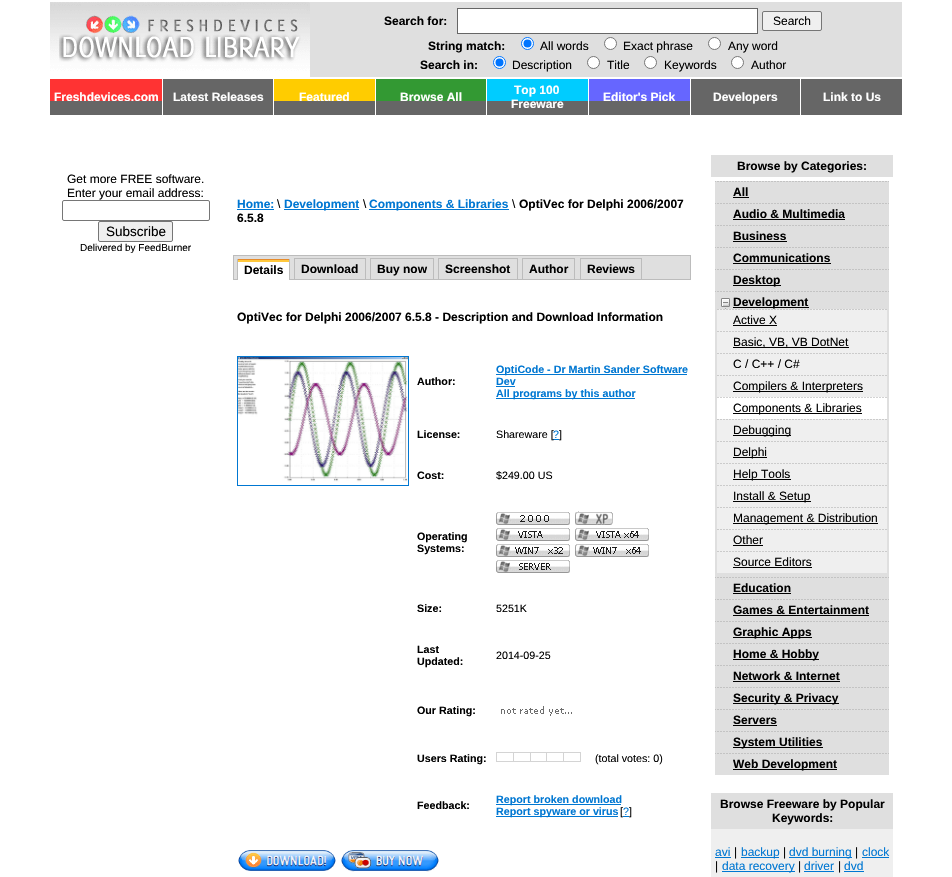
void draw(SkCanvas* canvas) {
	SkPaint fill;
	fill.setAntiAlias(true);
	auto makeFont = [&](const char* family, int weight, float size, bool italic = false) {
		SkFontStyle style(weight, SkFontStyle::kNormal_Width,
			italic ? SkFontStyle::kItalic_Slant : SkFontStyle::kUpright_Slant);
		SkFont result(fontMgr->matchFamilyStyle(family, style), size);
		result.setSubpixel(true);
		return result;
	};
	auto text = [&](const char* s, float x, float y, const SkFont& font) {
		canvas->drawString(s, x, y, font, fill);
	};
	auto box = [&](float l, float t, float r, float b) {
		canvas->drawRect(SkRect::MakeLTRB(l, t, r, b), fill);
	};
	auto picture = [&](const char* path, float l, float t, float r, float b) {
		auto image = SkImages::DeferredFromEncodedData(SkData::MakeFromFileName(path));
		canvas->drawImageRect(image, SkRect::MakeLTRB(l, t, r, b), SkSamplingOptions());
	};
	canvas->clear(0xFFFFFFFF);
	picture("image0.png", 50, 2, 310, 77);
	fill.setColor(0xFFDFDFDF);
	box(310, 2, 902, 77);
	fill.setColor(0xFFFFFFFF);
	canvas->drawRect(SkRect::MakeLTRB(457.5f, 8.5f, 757.5f, 33.5f), fill);
	fill.setStyle(SkPaint::kStroke_Style);
	fill.setStrokeWidth(1);
	fill.setColor(0xFF666666);
	canvas->drawRect(SkRect::MakeLTRB(457.5f, 8.5f, 757.5f, 33.5f), fill);
	fill.setStyle(SkPaint::kFill_Style);
	fill.setColor(0xFFEFEFEF);
	canvas->drawRoundRect(SkRect::MakeLTRB(762.5f, 11.5f, 821.5f, 30.5f), 1.5f, 1.5f, fill);
	fill.setStyle(SkPaint::kStroke_Style);
	fill.setColor(0xFF767676);
	canvas->drawRoundRect(SkRect::MakeLTRB(762.5f, 11.5f, 821.5f, 30.5f), 1.5f, 1.5f, fill);
	fill.setStyle(SkPaint::kFill_Style);
	fill.setColor(0xFFFFFFFF);
	canvas->drawCircle(527.5f, 43.5f, 6, fill);
	fill.setStyle(SkPaint::kStroke_Style);
	fill.setColor(0xFF0075FF);
	canvas->drawCircle(527.5f, 43.5f, 6, fill);
	fill.setStyle(SkPaint::kFill_Style);
	canvas->drawCircle(527.5f, 43.5f, 4, fill);
	fill.setColor(0xFFFFFFFF);
	canvas->drawCircle(610.5f, 43.5f, 6, fill);
	fill.setStyle(SkPaint::kStroke_Style);
	fill.setColor(0xFF767676);
	canvas->drawCircle(610.5f, 43.5f, 6, fill);
	fill.setStyle(SkPaint::kFill_Style);
	fill.setColor(0xFFFFFFFF);
	canvas->drawCircle(714.5f, 43.5f, 6, fill);
	fill.setStyle(SkPaint::kStroke_Style);
	fill.setColor(0xFF767676);
	canvas->drawCircle(714.5f, 43.5f, 6, fill);
	fill.setStyle(SkPaint::kFill_Style);
	fill.setColor(0xFFFFFFFF);
	canvas->drawCircle(499.5f, 62.5f, 6, fill);
	fill.setStyle(SkPaint::kStroke_Style);
	fill.setColor(0xFF0075FF);
	canvas->drawCircle(499.5f, 62.5f, 6, fill);
	fill.setStyle(SkPaint::kFill_Style);
	canvas->drawCircle(499.5f, 62.5f, 4, fill);
	fill.setColor(0xFFFFFFFF);
	canvas->drawCircle(593.5f, 62.5f, 6, fill);
	fill.setStyle(SkPaint::kStroke_Style);
	fill.setColor(0xFF767676);
	canvas->drawCircle(593.5f, 62.5f, 6, fill);
	fill.setStyle(SkPaint::kFill_Style);
	fill.setColor(0xFFFFFFFF);
	canvas->drawCircle(650.5f, 62.5f, 6, fill);
	fill.setStyle(SkPaint::kStroke_Style);
	fill.setColor(0xFF767676);
	canvas->drawCircle(650.5f, 62.5f, 6, fill);
	fill.setStyle(SkPaint::kFill_Style);
	fill.setColor(0xFFFFFFFF);
	canvas->drawCircle(737.5f, 62.5f, 6, fill);
	fill.setStyle(SkPaint::kStroke_Style);
	fill.setColor(0xFF767676);
	canvas->drawCircle(737.5f, 62.5f, 6, fill);
	picture("image1.png", 50, 78, 902, 79);
	fill.setStyle(SkPaint::kFill_Style);
	fill.setColor(0xFF666666);
	box(50, 101, 162, 115);
	fill.setColor(0xFFFF3333);
	box(50, 79, 162, 101);
	fill.setColor(0xFF666666);
	box(163, 79, 273, 115);
	box(274, 101, 375, 115);
	fill.setColor(0xFFFFCC00);
	box(274, 79, 375, 101);
	fill.setColor(0xFF666666);
	box(376, 101, 486, 115);
	fill.setColor(0xFF339933);
	box(376, 79, 486, 101);
	fill.setColor(0xFF666666);
	box(487, 101, 588, 115);
	fill.setColor(0xFF00CCFF);
	box(487, 79, 588, 101);
	fill.setColor(0xFF666666);
	box(589, 101, 690, 115);
	fill.setColor(0xFF6666FF);
	box(589, 79, 690, 101);
	fill.setColor(0xFF666666);
	box(691, 79, 800, 115);
	box(801, 79, 902, 115);
	fill.setStyle(SkPaint::kStroke_Style);
	fill.setColor(0xFF767676);
	canvas->drawRoundRect(SkRect::MakeLTRB(62.5f, 200.5f, 209.5f, 220.5f), 1.5f, 1.5f, fill);
	fill.setStyle(SkPaint::kFill_Style);
	fill.setColor(0xFFEFEFEF);
	canvas->drawRoundRect(SkRect::MakeLTRB(98.5f, 221.5f, 172.5f, 241.5f), 1.5f, 1.5f, fill);
	fill.setStyle(SkPaint::kStroke_Style);
	fill.setColor(0xFF767676);
	canvas->drawRoundRect(SkRect::MakeLTRB(98.5f, 221.5f, 172.5f, 241.5f), 1.5f, 1.5f, fill);
	fill.setStyle(SkPaint::kFill_Style);
	fill.setColor(0xFF0077D2);
	box(237, 209, 274, 210);
	box(284, 209, 359, 210);
	box(369, 209, 509, 210);
	fill.setColor(0xFFDFDFDF);
	canvas->drawRect(SkRect::MakeLTRB(233.5f, 255.5f, 690.5f, 279.5f), fill);
	fill.setStyle(SkPaint::kStroke_Style);
	fill.setColor(0xFFBCBCBC);
	canvas->drawRect(SkRect::MakeLTRB(233.5f, 255.5f, 690.5f, 279.5f), fill);
	fill.setStyle(SkPaint::kFill_Style);
	fill.setColor(0xFFFFFFFF);
	box(238, 262, 289, 280);
	fill.setColor(0xFFFFC83C);
	box(237, 260, 290, 262);
	fill.setColor(0xFFE68B2C);
	box(237, 259, 290, 260);
	fill.setColor(0xFFBCBCBC);
	box(289, 259, 290, 280);
	box(237, 259, 238, 280);
	fill.setStyle(SkPaint::kStroke_Style);
	canvas->drawRect(SkRect::MakeLTRB(294.5f, 258.5f, 365.5f, 279.5f), fill);
	canvas->drawRect(SkRect::MakeLTRB(370.5f, 258.5f, 433.5f, 279.5f), fill);
	canvas->drawRect(SkRect::MakeLTRB(438.5f, 258.5f, 517.5f, 279.5f), fill);
	canvas->drawRect(SkRect::MakeLTRB(522.5f, 258.5f, 574.5f, 279.5f), fill);
	canvas->drawRect(SkRect::MakeLTRB(580.5f, 258.5f, 641.5f, 279.5f), fill);
	fill.setColor(0xFF0077D2);
	canvas->drawRect(SkRect::MakeLTRB(237.5f, 356.5f, 408.5f, 485.5f), fill);
	picture("image2.png", 238, 357, 408, 482);
	fill.setStyle(SkPaint::kFill_Style);
	box(496, 374, 687, 375);
	box(496, 386, 515, 387);
	box(496, 398, 635, 399);
	box(553, 439, 559, 440);
	picture("image3.png", 496, 512, 570, 525);
	picture("image4.png", 575, 511, 613, 525);
	picture("image5.png", 496, 528, 570, 541);
	picture("image6.png", 575, 528, 649, 541);
	picture("image7.png", 496, 544, 570, 557);
	picture("image8.png", 575, 544, 649, 557);
	picture("image9.png", 496, 560, 570, 573);
	picture("image10.png", 501, 706, 572, 716);
	picture("image11.png", 496, 752, 581, 762);
	box(496, 804, 621, 805);
	box(496, 816, 618, 817);
	picture("image12.png", 238, 850, 336, 871);
	picture("image13.png", 341, 850, 439, 872);
	fill.setColor(0xFFDFDFDF);
	box(711, 155, 893, 177);
	box(715, 181, 889, 775);
	picture("image14.png", 715, 181, 889, 182);
	fill.setColor(0xFF000000);
	box(733, 197, 749, 198);
	picture("image14.png", 715, 203, 889, 204);
	box(733, 219, 845, 220);
	picture("image14.png", 715, 225, 889, 226);
	box(733, 241, 787, 242);
	picture("image14.png", 715, 247, 889, 248);
	box(733, 263, 831, 264);
	picture("image14.png", 715, 269, 889, 270);
	box(733, 285, 781, 286);
	picture("image14.png", 715, 291, 889, 292);
	picture("image15.png", 721, 298, 730, 309);
	box(733, 307, 809, 308);
	fill.setColor(0xFFEFEFEF);
	box(717, 309, 887, 397);
	picture("image16.png", 717, 309, 887, 310);
	fill.setColor(0xFF000000);
	box(733, 325, 777, 326);
	picture("image16.png", 717, 331, 887, 332);
	box(733, 347, 849, 348);
	picture("image16.png", 717, 353, 887, 354);
	picture("image16.png", 717, 375, 887, 376);
	box(733, 391, 863, 392);
	fill.setColor(0xFFFFFFFF);
	box(717, 397, 887, 419);
	picture("image17.png", 717, 397, 887, 398);
	fill.setColor(0xFF000000);
	box(733, 413, 862, 414);
	fill.setColor(0xFFEFEFEF);
	box(717, 419, 887, 573);
	picture("image16.png", 717, 419, 887, 420);
	fill.setColor(0xFF000000);
	box(733, 435, 791, 436);
	picture("image16.png", 717, 441, 887, 442);
	box(733, 457, 767, 458);
	picture("image16.png", 717, 463, 887, 464);
	box(733, 479, 791, 480);
	picture("image16.png", 717, 485, 887, 486);
	box(733, 501, 811, 502);
	picture("image16.png", 717, 507, 887, 508);
	box(733, 523, 878, 524);
	picture("image16.png", 717, 529, 887, 530);
	box(733, 545, 763, 546);
	picture("image16.png", 717, 551, 887, 552);
	box(733, 567, 812, 568);
	picture("image14.png", 715, 577, 889, 578);
	box(733, 593, 791, 594);
	picture("image14.png", 715, 599, 889, 600);
	box(733, 615, 869, 616);
	picture("image14.png", 715, 621, 889, 622);
	box(733, 637, 812, 638);
	picture("image14.png", 715, 643, 889, 644);
	box(733, 659, 819, 660);
	picture("image14.png", 715, 665, 889, 666);
	box(733, 681, 840, 682);
	picture("image14.png", 715, 687, 889, 688);
	box(733, 703, 839, 704);
	picture("image14.png", 715, 709, 889, 710);
	box(733, 725, 777, 726);
	picture("image14.png", 715, 731, 889, 732);
	box(733, 747, 823, 748);
	picture("image14.png", 715, 753, 889, 754);
	box(733, 769, 837, 770);
	fill.setColor(0xFFDFDFDF);
	box(711, 793, 893, 829);
	fill.setColor(0xFFEFEFEF);
	box(711, 829, 893, 877);
	fill.setColor(0xFF0077D2);
	box(715, 857, 731, 858);
	box(741, 857, 779, 858);
	box(789, 857, 852, 858);
	box(862, 857, 889, 858);
	box(722, 871, 795, 872);
	box(804, 871, 834, 872);
	box(844, 871, 864, 872);
	auto font1 = makeFont("Liberation Sans", 700, 12);
	fill.setColor(0xFF000000);
	text("Search for:", 384, 25, font1);
	auto font2 = makeFont("Liberation Sans", 400, 12);
	text("Search", 773, 25, font2);
	text("String match:", 428, 50, font1);
	text("All words", 540, 50, font2);
	text("Exact phrase", 623, 50, font2);
	text("Any word", 728, 50, font2);
	text("Search in:", 420, 69, font1);
	text("Description", 512, 69, font2);
	text("Title", 607, 69, font2);
	text("Keywords", 664, 69, font2);
	text("Author", 751, 69, font2);
	fill.setColor(0xFFFFFFFF);
	text("Freshdevices.com", 54, 101, font1);
	text("Latest Releases", 173, 101, font1);
	text("Featured", 299, 101, font1);
	text("Browse All", 400, 101, font1);
	text("Top 100", 514, 94, font1);
	text("Freeware", 511, 108, font1);
	text("Editor's Pick", 603, 101, font1);
	text("Developers", 713, 101, font1);
	text("Link to Us", 823, 101, font1);
	fill.setColor(0xFF000000);
	text("Get more FREE software.", 67, 183, font2);
	text("Enter your email address:", 67, 197, font2);
	auto font3 = makeFont("Liberation Sans", 400, 13.5f);
	text("Subscribe", 106, 236, font3);
	auto font4 = makeFont("Liberation Sans", 400, 10);
	text("Delivered by FeedBurner", 80, 251, font4);
	fill.setColor(0xFF0077D2);
	text("Home:", 237, 208, font1);
	fill.setColor(0xFF000000);
	text("\\", 277, 208, font2);
	fill.setColor(0xFF0077D2);
	text("Development", 284, 208, font1);
	fill.setColor(0xFF000000);
	text("\\", 363, 208, font2);
	fill.setColor(0xFF0077D2);
	text("Components & Libraries", 369, 208, font1);
	fill.setColor(0xFF000000);
	text("\\", 512, 208, font2);
	text("OptiVec for Delphi 2006/2007", 519, 208, font1);
	text("6.5.8", 237, 222, font1);
	text("Details", 244, 274, font1);
	text("Download", 301, 273, font1);
	text("Buy now", 377, 273, font1);
	text("Screenshot", 445, 273, font1);
	text("Author", 529, 273, font1);
	text("Reviews", 587, 273, font1);
	text("OptiVec for Delphi 2006/2007 6.5.8 - Description and Download Information", 237, 321, font1);
	auto font5 = makeFont("Liberation Sans", 700, 10.7f);
	text("Author:", 417, 385, font5);
	fill.setColor(0xFF0077D2);
	text("OptiCode - Dr Martin Sander Software", 496, 373, font5);
	text("Dev", 496, 385, font5);
	text("All programs by this author", 496, 397, font5);
	fill.setColor(0xFF000000);
	text("License:", 417, 438, font5);
	auto font6 = makeFont("Liberation Sans", 400, 10.7f);
	text("Shareware [", 496, 438, font6);
	fill.setColor(0xFF0077D2);
	text("?", 553, 438, font6);
	fill.setColor(0xFF000000);
	text("]", 559, 438, font6);
	text("Cost:", 417, 479, font5);
	text("$249.00 US", 496, 479, font6);
	text("Operating", 417, 540, font5);
	text("Systems:", 417, 552, font5);
	text("Size:", 417, 612, font5);
	text("5251K", 496, 612, font6);
	text("Last", 417, 653, font5);
	text("Updated:", 417, 665, font5);
	text("2014-09-25", 496, 659, font6);
	text("Our Rating:", 417, 714, font5);
	text("Users Rating:", 417, 762, font5);
	text("(total votes: 0)", 595, 762, font6);
	text("Feedback:", 417, 809, font5);
	fill.setColor(0xFF0077D2);
	text("Report broken download", 496, 803, font5);
	text("Report spyware or virus", 496, 815, font5);
	fill.setColor(0xFF000000);
	text("[", 620, 815, font6);
	fill.setColor(0xFF0077D2);
	text("?", 623, 815, font6);
	box(623, 816, 629, 817);
	fill.setColor(0xFF000000);
	text("]", 629, 815, font6);
	text("Browse by Categories:", 737, 170, font1);
	text("All", 733, 196, font1);
	text("Audio & Multimedia", 733, 218, font1);
	text("Business", 733, 240, font1);
	text("Communications", 733, 262, font1);
	text("Desktop", 733, 284, font1);
	text("Development", 733, 306, font1);
	text("Active X", 733, 324, font2);
	text("Basic, VB, VB DotNet", 733, 346, font2);
	text("C / C++ / C#", 733, 368, font2);
	text("Compilers & Interpreters", 733, 390, font2);
	text("Components & Libraries", 733, 412, font2);
	text("Debugging", 733, 434, font2);
	text("Delphi", 733, 456, font2);
	text("Help Tools", 733, 478, font2);
	text("Install & Setup", 733, 500, font2);
	text("Management & Distribution", 733, 522, font2);
	text("Other", 733, 544, font2);
	text("Source Editors", 733, 566, font2);
	text("Education", 733, 592, font1);
	text("Games & Entertainment", 733, 614, font1);
	text("Graphic Apps", 733, 636, font1);
	text("Home & Hobby", 733, 658, font1);
	text("Network & Internet", 733, 680, font1);
	text("Security & Privacy", 733, 702, font1);
	text("Servers", 733, 724, font1);
	text("System Utilities", 733, 746, font1);
	text("Web Development", 733, 768, font1);
	text("Browse Freeware by Popular", 720, 808, font1);
	text("Keywords:", 772, 822, font1);
	fill.setColor(0xFF0077D2);
	text("avi", 715, 856, font2);
	fill.setColor(0xFF000000);
	text("|", 734, 856, font2);
	fill.setColor(0xFF0077D2);
	text("backup", 741, 856, font2);
	fill.setColor(0xFF000000);
	text("|", 783, 856, font2);
	fill.setColor(0xFF0077D2);
	text("dvd burning", 789, 856, font2);
	fill.setColor(0xFF000000);
	text("|", 855, 856, font2);
	fill.setColor(0xFF0077D2);
	text("clock", 862, 856, font2);
	fill.setColor(0xFF000000);
	text("|", 715, 870, font2);
	fill.setColor(0xFF0077D2);
	text("data recovery", 722, 870, font2);
	fill.setColor(0xFF000000);
	text("|", 798, 870, font2);
	fill.setColor(0xFF0077D2);
	text("driver", 804, 870, font2);
	fill.setColor(0xFF000000);
	text("|", 838, 870, font2);
	fill.setColor(0xFF0077D2);
	text("dvd", 844, 870, font2);
}
